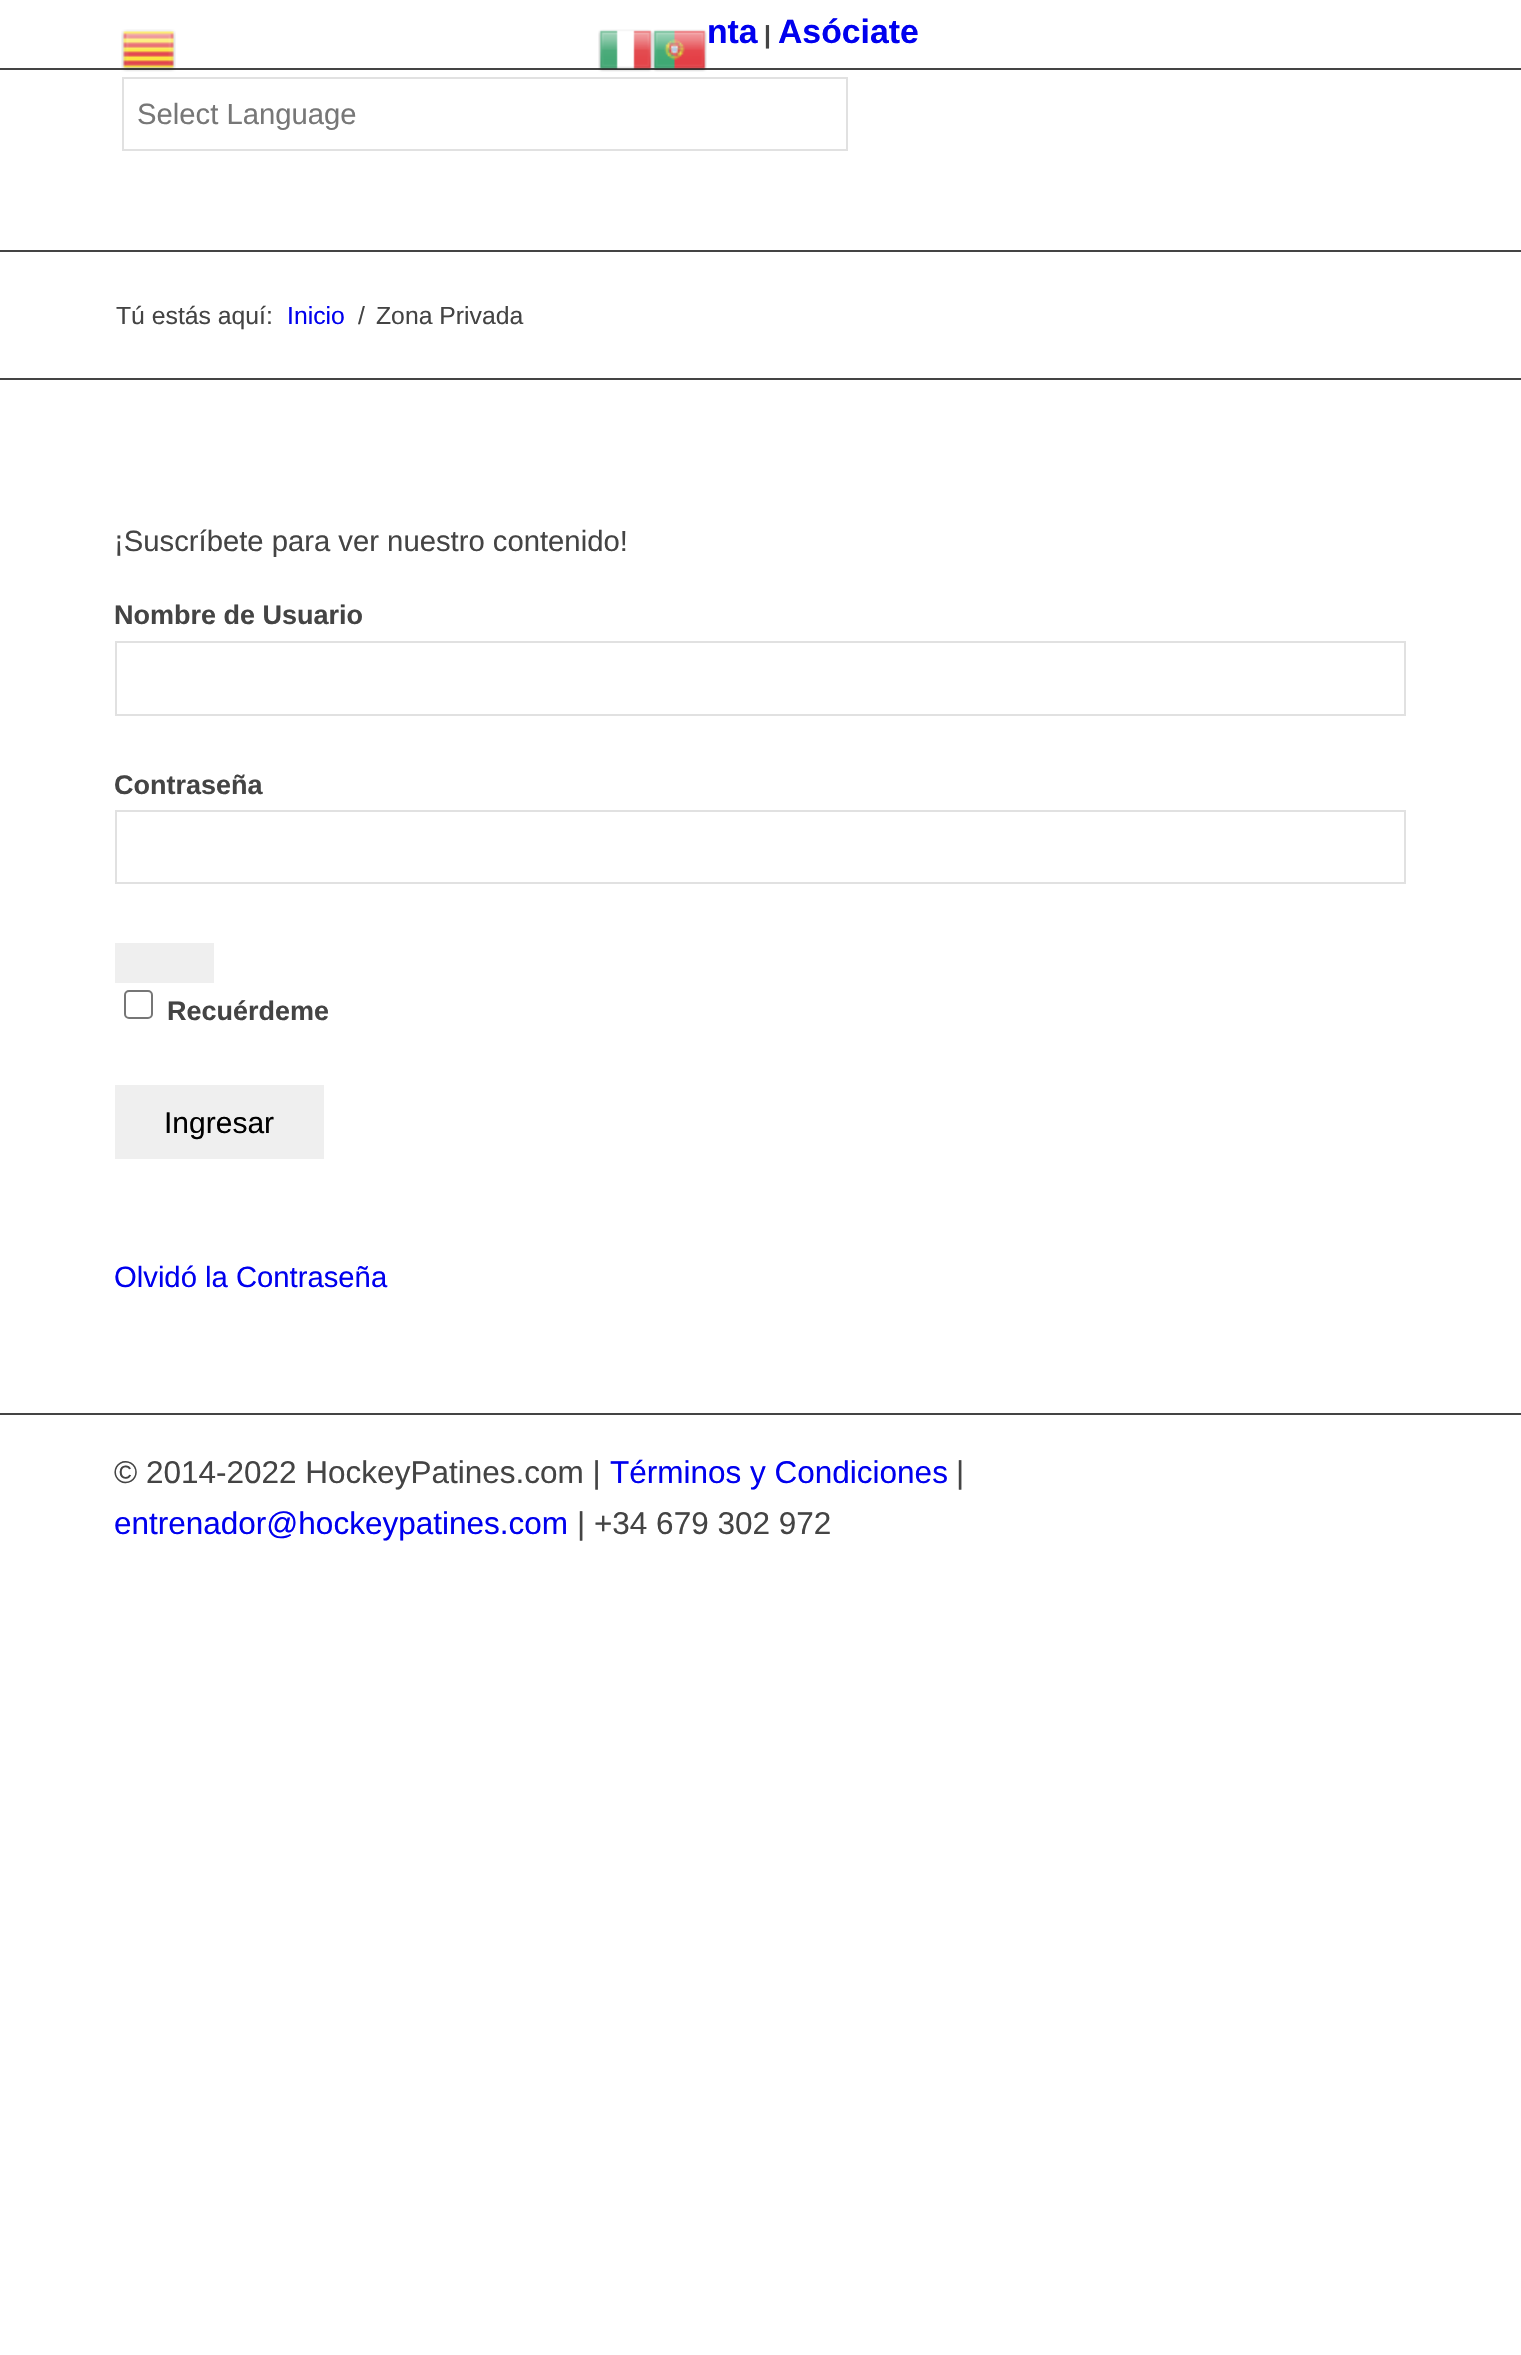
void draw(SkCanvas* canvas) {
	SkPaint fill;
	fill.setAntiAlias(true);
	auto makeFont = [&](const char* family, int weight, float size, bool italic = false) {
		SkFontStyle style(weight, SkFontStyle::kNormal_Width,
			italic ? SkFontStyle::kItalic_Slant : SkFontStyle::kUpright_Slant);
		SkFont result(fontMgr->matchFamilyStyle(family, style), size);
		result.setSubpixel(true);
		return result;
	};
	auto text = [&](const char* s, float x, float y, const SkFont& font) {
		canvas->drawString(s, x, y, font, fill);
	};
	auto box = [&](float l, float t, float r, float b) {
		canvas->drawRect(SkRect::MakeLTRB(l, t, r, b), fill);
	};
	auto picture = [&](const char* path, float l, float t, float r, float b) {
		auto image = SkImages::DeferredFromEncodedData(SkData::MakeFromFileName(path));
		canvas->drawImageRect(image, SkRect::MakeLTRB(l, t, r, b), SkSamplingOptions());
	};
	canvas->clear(0xFFFFFFFF);
	fill.setColor(0xFF444444);
	box(0, 68, 1521, 70);
	box(0, 250, 1521, 252);
	box(0, 378, 1521, 380);
	fill.setStyle(SkPaint::kStroke_Style);
	fill.setStrokeWidth(2);
	fill.setColor(0xFFE1E1E1);
	canvas->drawRect(SkRect::MakeLTRB(116, 642, 1405, 715), fill);
	canvas->drawRect(SkRect::MakeLTRB(116, 811, 1405, 883), fill);
	fill.setStyle(SkPaint::kFill_Style);
	fill.setColor(0xFFEFEFEF);
	box(115, 943, 214, 983);
	fill.setStyle(SkPaint::kStroke_Style);
	fill.setColor(0xFF767676);
	canvas->drawRoundRect(SkRect::MakeLTRB(125, 991, 152, 1018), 4, 4, fill);
	fill.setStyle(SkPaint::kFill_Style);
	fill.setColor(0xFFEFEFEF);
	box(115, 1085, 324, 1159);
	fill.setColor(0xFF444444);
	box(0, 1413, 1521, 1415);
	picture("image0.png", 121, 29, 176, 72);
	picture("image1.png", 598, 29, 653, 72);
	picture("image2.png", 652, 29, 707, 72);
	fill.setStyle(SkPaint::kStroke_Style);
	fill.setColor(0xFFE1E1E1);
	canvas->drawRect(SkRect::MakeLTRB(123, 78, 847, 150), fill);
	auto font1 = makeFont("Liberation Sans", 700, 33.75f);
	fill.setStyle(SkPaint::kFill_Style);
	fill.setColor(0xFF0000EE);
	text("nta", 707, 43, font1);
	auto font2 = makeFont("Liberation Sans", 700, 24.75f);
	fill.setColor(0xFF444444);
	text("|", 764, 43, font2);
	fill.setColor(0xFF0000EE);
	text("Asóciate", 778, 43, font1);
	auto font3 = makeFont("Liberation Sans", 400, 24.75f);
	fill.setColor(0xFF444444);
	text("Tú estás aquí:", 116, 324, font3);
	fill.setColor(0xFF0000EE);
	text("Inicio", 287, 324, font3);
	fill.setColor(0xFF444444);
	text("/", 358, 324, font3);
	text("Zona Privada", 376, 324, font3);
	auto font4 = makeFont("Liberation Sans", 400, 29.25f);
	text("¡Suscríbete para ver nuestro contenido!", 114, 551, font4);
	auto font5 = makeFont("Liberation Sans", 700, 27);
	text("Nombre de Usuario", 114, 624, font5);
	text("Contraseña", 114, 794, font5);
	text("Recuérdeme", 167, 1020, font5);
	auto font6 = makeFont("Liberation Sans", 400, 30);
	fill.setColor(0xFF000000);
	text("Ingresar", 164, 1133, font6);
	fill.setColor(0xFF0000EE);
	text("Olvidó la Contraseña", 114, 1287, font4);
	auto font7 = makeFont("Liberation Sans", 400, 31.5f);
	fill.setColor(0xFF444444);
	text("© 2014-2022 HockeyPatines.com |", 114, 1483, font7);
	fill.setColor(0xFF0000EE);
	text("Términos y Condiciones", 610, 1483, font7);
	fill.setColor(0xFF444444);
	text("|", 956, 1483, font7);
	fill.setColor(0xFF0000EE);
	text("entrenador@hockeypatines.com", 114, 1534, font7);
	fill.setColor(0xFF444444);
	text("| +34 679 302 972", 577, 1534, font7);
	fill.setColor(0xFF777777);
	text("Select Language", 137, 124, font4);
}
